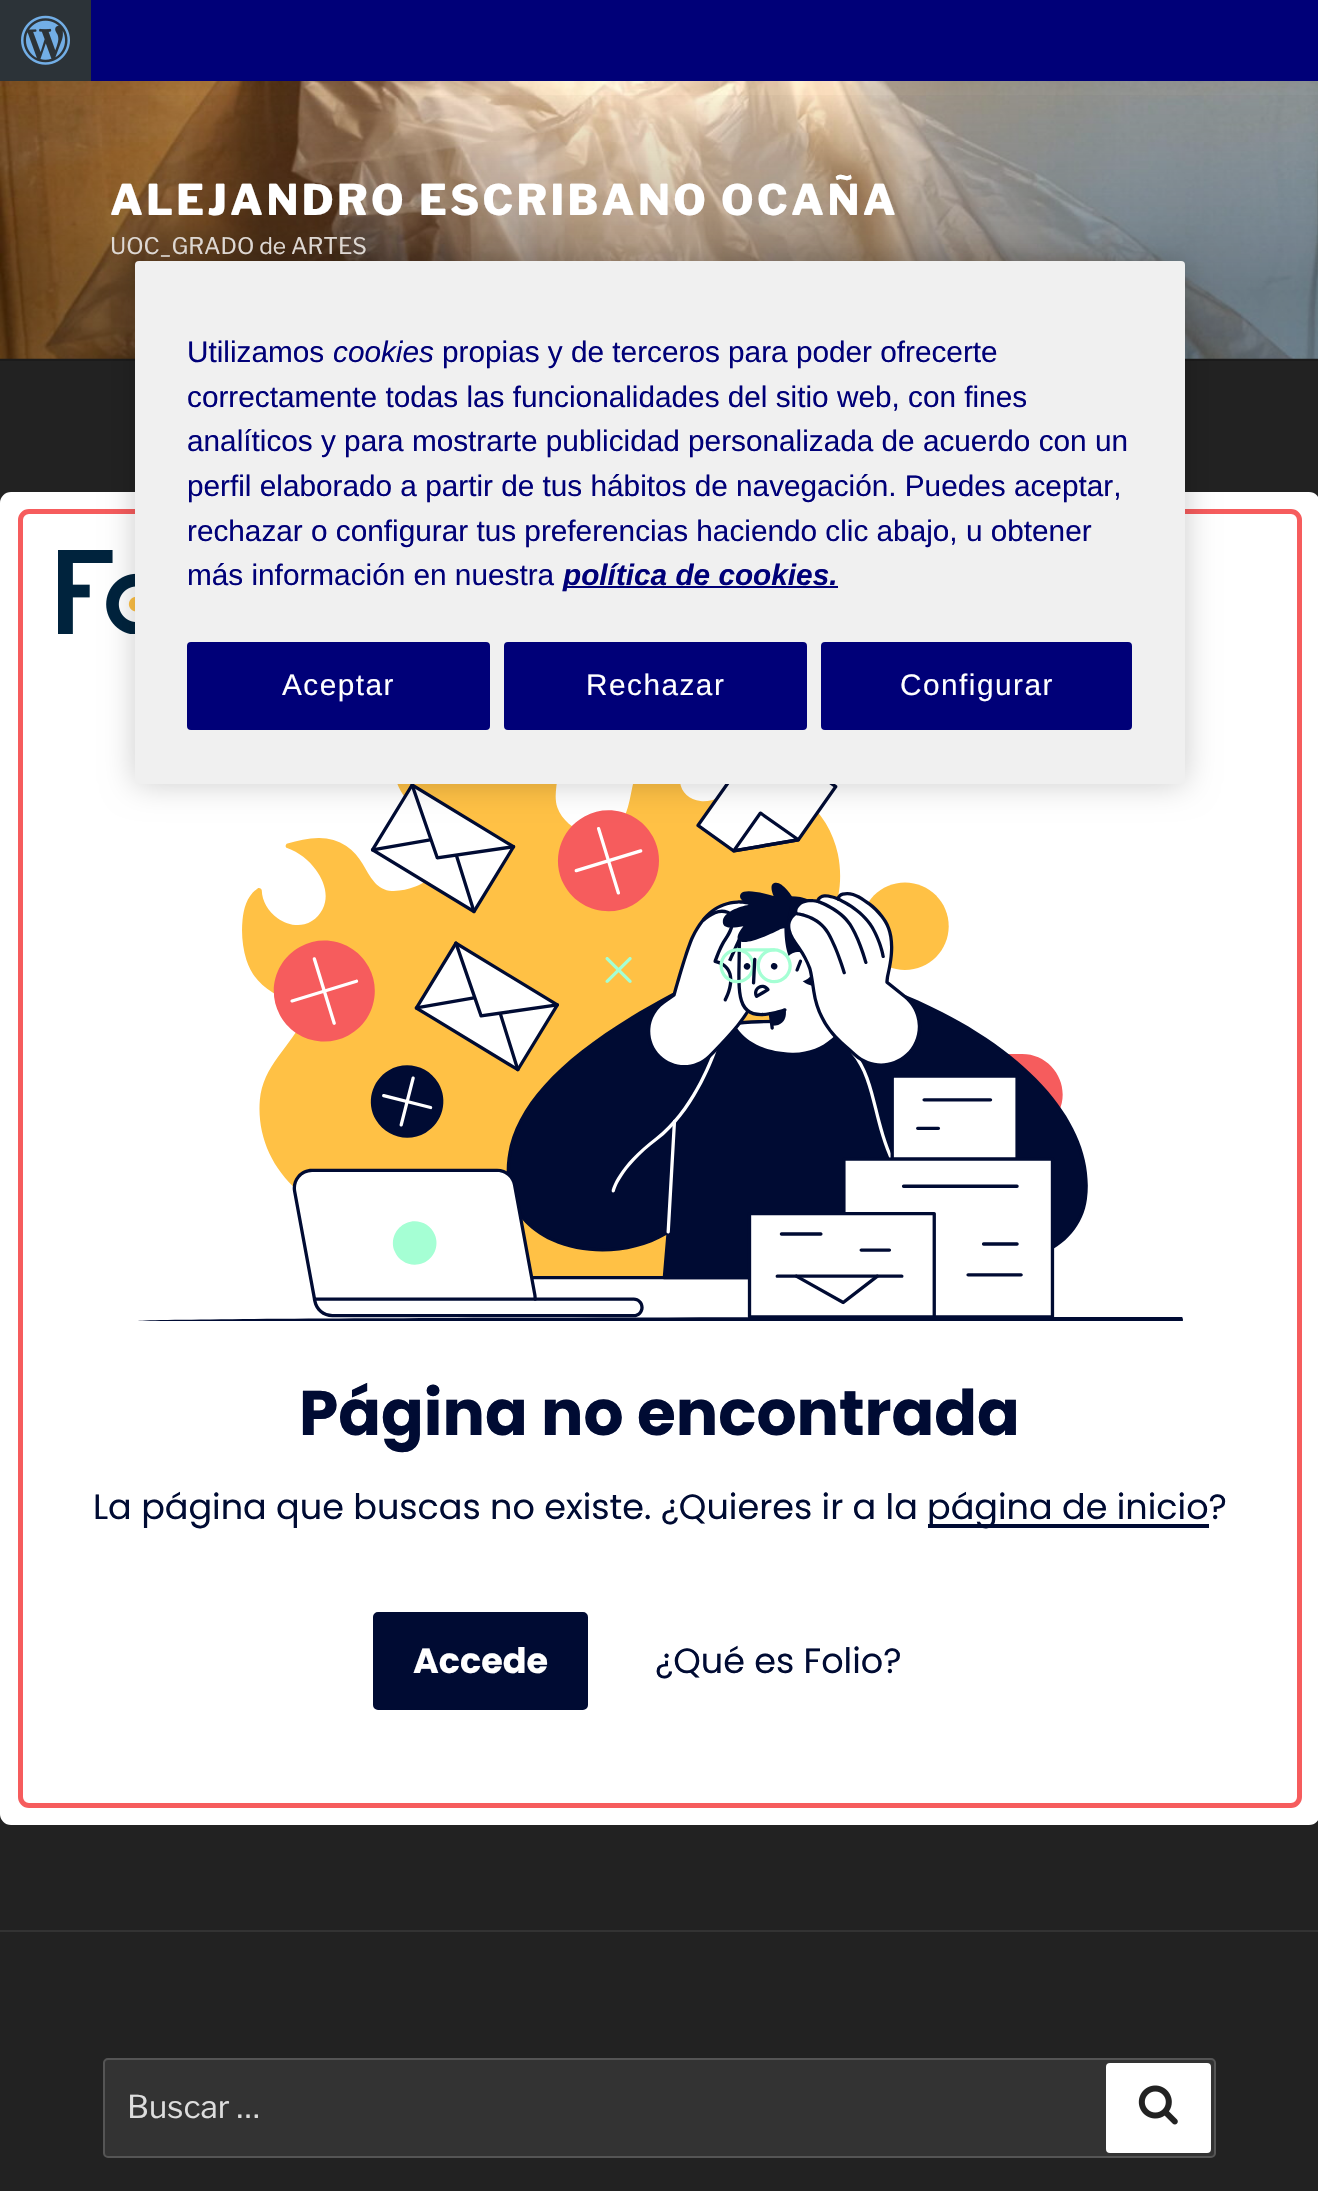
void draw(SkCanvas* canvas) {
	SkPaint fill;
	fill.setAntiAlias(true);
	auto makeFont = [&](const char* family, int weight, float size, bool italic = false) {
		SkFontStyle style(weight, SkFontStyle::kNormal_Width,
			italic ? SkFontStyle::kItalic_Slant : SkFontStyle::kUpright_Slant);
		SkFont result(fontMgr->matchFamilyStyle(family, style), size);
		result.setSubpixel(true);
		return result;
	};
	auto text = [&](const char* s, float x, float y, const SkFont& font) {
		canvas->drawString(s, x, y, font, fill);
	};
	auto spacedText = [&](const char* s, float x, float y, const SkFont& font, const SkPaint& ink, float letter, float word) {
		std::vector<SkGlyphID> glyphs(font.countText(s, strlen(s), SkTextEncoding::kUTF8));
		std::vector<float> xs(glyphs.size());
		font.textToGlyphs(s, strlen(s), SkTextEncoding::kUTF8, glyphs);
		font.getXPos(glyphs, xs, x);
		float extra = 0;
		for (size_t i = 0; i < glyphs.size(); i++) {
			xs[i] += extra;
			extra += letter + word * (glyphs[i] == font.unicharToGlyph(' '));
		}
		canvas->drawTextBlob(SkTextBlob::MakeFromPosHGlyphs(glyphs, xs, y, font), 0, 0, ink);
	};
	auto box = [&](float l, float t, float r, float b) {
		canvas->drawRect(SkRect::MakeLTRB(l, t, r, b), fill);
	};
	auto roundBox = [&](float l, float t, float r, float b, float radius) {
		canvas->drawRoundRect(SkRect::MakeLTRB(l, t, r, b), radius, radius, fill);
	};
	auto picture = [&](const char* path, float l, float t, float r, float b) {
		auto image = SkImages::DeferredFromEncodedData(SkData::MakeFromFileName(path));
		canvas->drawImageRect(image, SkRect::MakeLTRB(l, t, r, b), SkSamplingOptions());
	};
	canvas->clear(0xFF222222);
	fill.setColor(0xFF000078);
	box(91, 0, 1318, 81);
	fill.setColor(0xFF2C3338);
	box(0, 0, 91, 81);
	picture("image0.png", 21, 15, 70, 65);
	fill.setColor(0xFF262626);
	box(0, 358, 1318, 361);
	picture("image1.png", 0, 81, 1318, 359);
	{
		const SkColor colors[] = {0x00000000, 0x4D000000, 0x4D000000};
		const float stops[] = {0, 0.75f, 1};
		const SkPoint ends[] = {{660, 80}, {660, 361}};
		fill.setShader(SkGradientShader::MakeLinear(ends, colors, stops, 3, SkTileMode::kClamp));
		fill.setAlpha(255);
	}
	box(0, 95, 1318, 361);
	fill.setShader(nullptr);
	fill.setColor(0xFFFFFFFF);
	roundBox(0, 492, 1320, 1825, 11);
	fill.setStyle(SkPaint::kStroke_Style);
	fill.setStrokeWidth(5);
	fill.setColor(0xFFF65C5D);
	canvas->drawRoundRect(SkRect::MakeLTRB(20.5f, 511.5f, 1299.5f, 1805.5f), 8.5f, 8.5f, fill);
	picture("image2.png", 58, 550, 135, 634);
	picture("image3.png", 138, 784, 1183, 1321);
	fill.setStyle(SkPaint::kFill_Style);
	fill.setColor(0xFF000B33);
	box(928, 1524, 1209, 1528);
	canvas->drawRoundRect(SkRect::MakeLTRB(374, 1613, 587, 1709), 4, 4, fill);
	fill.setStyle(SkPaint::kStroke_Style);
	fill.setStrokeWidth(2);
	canvas->drawRoundRect(SkRect::MakeLTRB(374, 1613, 587, 1709), 4, 4, fill);
	fill.setStyle(SkPaint::kFill_Style);
	fill.setColor(0xFF333333);
	box(0, 1930, 1318, 1932);
	canvas->drawRoundRect(SkRect::MakeLTRB(104, 2059, 1215, 2157), 4, 4, fill);
	fill.setStyle(SkPaint::kStroke_Style);
	fill.setColor(0xFF555555);
	canvas->drawRoundRect(SkRect::MakeLTRB(104, 2059, 1215, 2157), 4, 4, fill);
	fill.setStyle(SkPaint::kFill_Style);
	fill.setColor(0xFFFFFFFF);
	roundBox(1106, 2063, 1211, 2153, 4);
	picture("image4.png", 1138, 2085, 1178, 2125);
	fill.setColor(0x33000000);
	fill.setMaskFilter(SkMaskFilter::MakeBlur(kNormal_SkBlurStyle, 16));
	canvas->drawRoundRect(SkRect::MakeLTRB(135, 261, 1185, 784), 4, 4, fill);
	fill.setMaskFilter(nullptr);
	fill.setColor(0xFFF0F0F0);
	roundBox(135, 261, 1185, 784, 4);
	fill.setColor(0xFF000078);
	box(564, 586, 838, 588);
	canvas->drawRoundRect(SkRect::MakeLTRB(188, 643, 489, 729), 3, 3, fill);
	fill.setStyle(SkPaint::kStroke_Style);
	canvas->drawRoundRect(SkRect::MakeLTRB(188, 643, 489, 729), 3, 3, fill);
	fill.setStyle(SkPaint::kFill_Style);
	canvas->drawRoundRect(SkRect::MakeLTRB(505, 643, 806, 729), 3, 3, fill);
	fill.setStyle(SkPaint::kStroke_Style);
	canvas->drawRoundRect(SkRect::MakeLTRB(505, 643, 806, 729), 3, 3, fill);
	fill.setStyle(SkPaint::kFill_Style);
	canvas->drawRoundRect(SkRect::MakeLTRB(822, 643, 1131, 729), 3, 3, fill);
	fill.setStyle(SkPaint::kStroke_Style);
	canvas->drawRoundRect(SkRect::MakeLTRB(822, 643, 1131, 729), 3, 3, fill);
	auto font1 = makeFont("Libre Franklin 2", 100, 42);
	fill.setStyle(SkPaint::kFill_Style);
	fill.setColor(0xFFFFFFFF);
	spacedText("ALEJANDRO ESCRIBANO OCAÑA", 110, 215, font1, fill, 3.35f, 0);
	auto font2 = makeFont("Libre Franklin", 100, 22.75f);
	fill.setColor(0xFFDED8D3);
	text("UOC_GRADO de ARTES", 110, 254, font2);
	auto font3 = makeFont("Poppins", 700, 63);
	fill.setColor(0xFF000B33);
	text("Página no encontrada", 299, 1435, font3);
	auto font4 = makeFont("Poppins", 400, 35);
	text("La página que buscas no existe. ¿Quieres ir a la", 93, 1519, font4);
	text("página de inicio?", 927, 1519, font4);
	auto font5 = makeFont("Poppins", 700, 35);
	fill.setColor(0xFFFFFFFF);
	text("Accede", 413, 1673, font5);
	fill.setColor(0xFF000B33);
	text("¿Qué es Folio?", 655, 1673, font4);
	auto font6 = makeFont("Libre Franklin", 100, 31.5f);
	fill.setColor(0xFFDDDDDD);
	text("Buscar …", 127, 2118, font6);
	auto font7 = makeFont("Liberation Sans", 400, 29.75f);
	fill.setColor(0xFF000078);
	text("Utilizamos", 187, 362, font7);
	auto font8 = makeFont("Liberation Sans", 400, 29.75f, true);
	text("cookies", 333, 362, font8);
	text("propias y de terceros para poder ofrecerte", 442, 362, font7);
	text("correctamente todas las funcionalidades del sitio web, con fines", 187, 407, font7);
	text("analíticos y para mostrarte publicidad personalizada de acuerdo con un", 187, 451, font7);
	text("perfil elaborado a partir de tus hábitos de navegación. Puedes aceptar,", 187, 496, font7);
	text("rechazar o configurar tus preferencias haciendo clic abajo, u obtener", 187, 541, font7);
	text("más información en nuestra", 187, 585, font7);
	auto font9 = makeFont("Liberation Sans", 700, 29.75f, true);
	text("política de cookies.", 563, 585, font9);
	fill.setColor(0xFFFFFFFF);
	spacedText("Aceptar", 282, 695, font7, fill, 1.5f, 0);
	spacedText("Rechazar", 586, 695, font7, fill, 1.5f, 0);
	spacedText("Configurar", 900, 695, font7, fill, 1.5f, 0);
}
